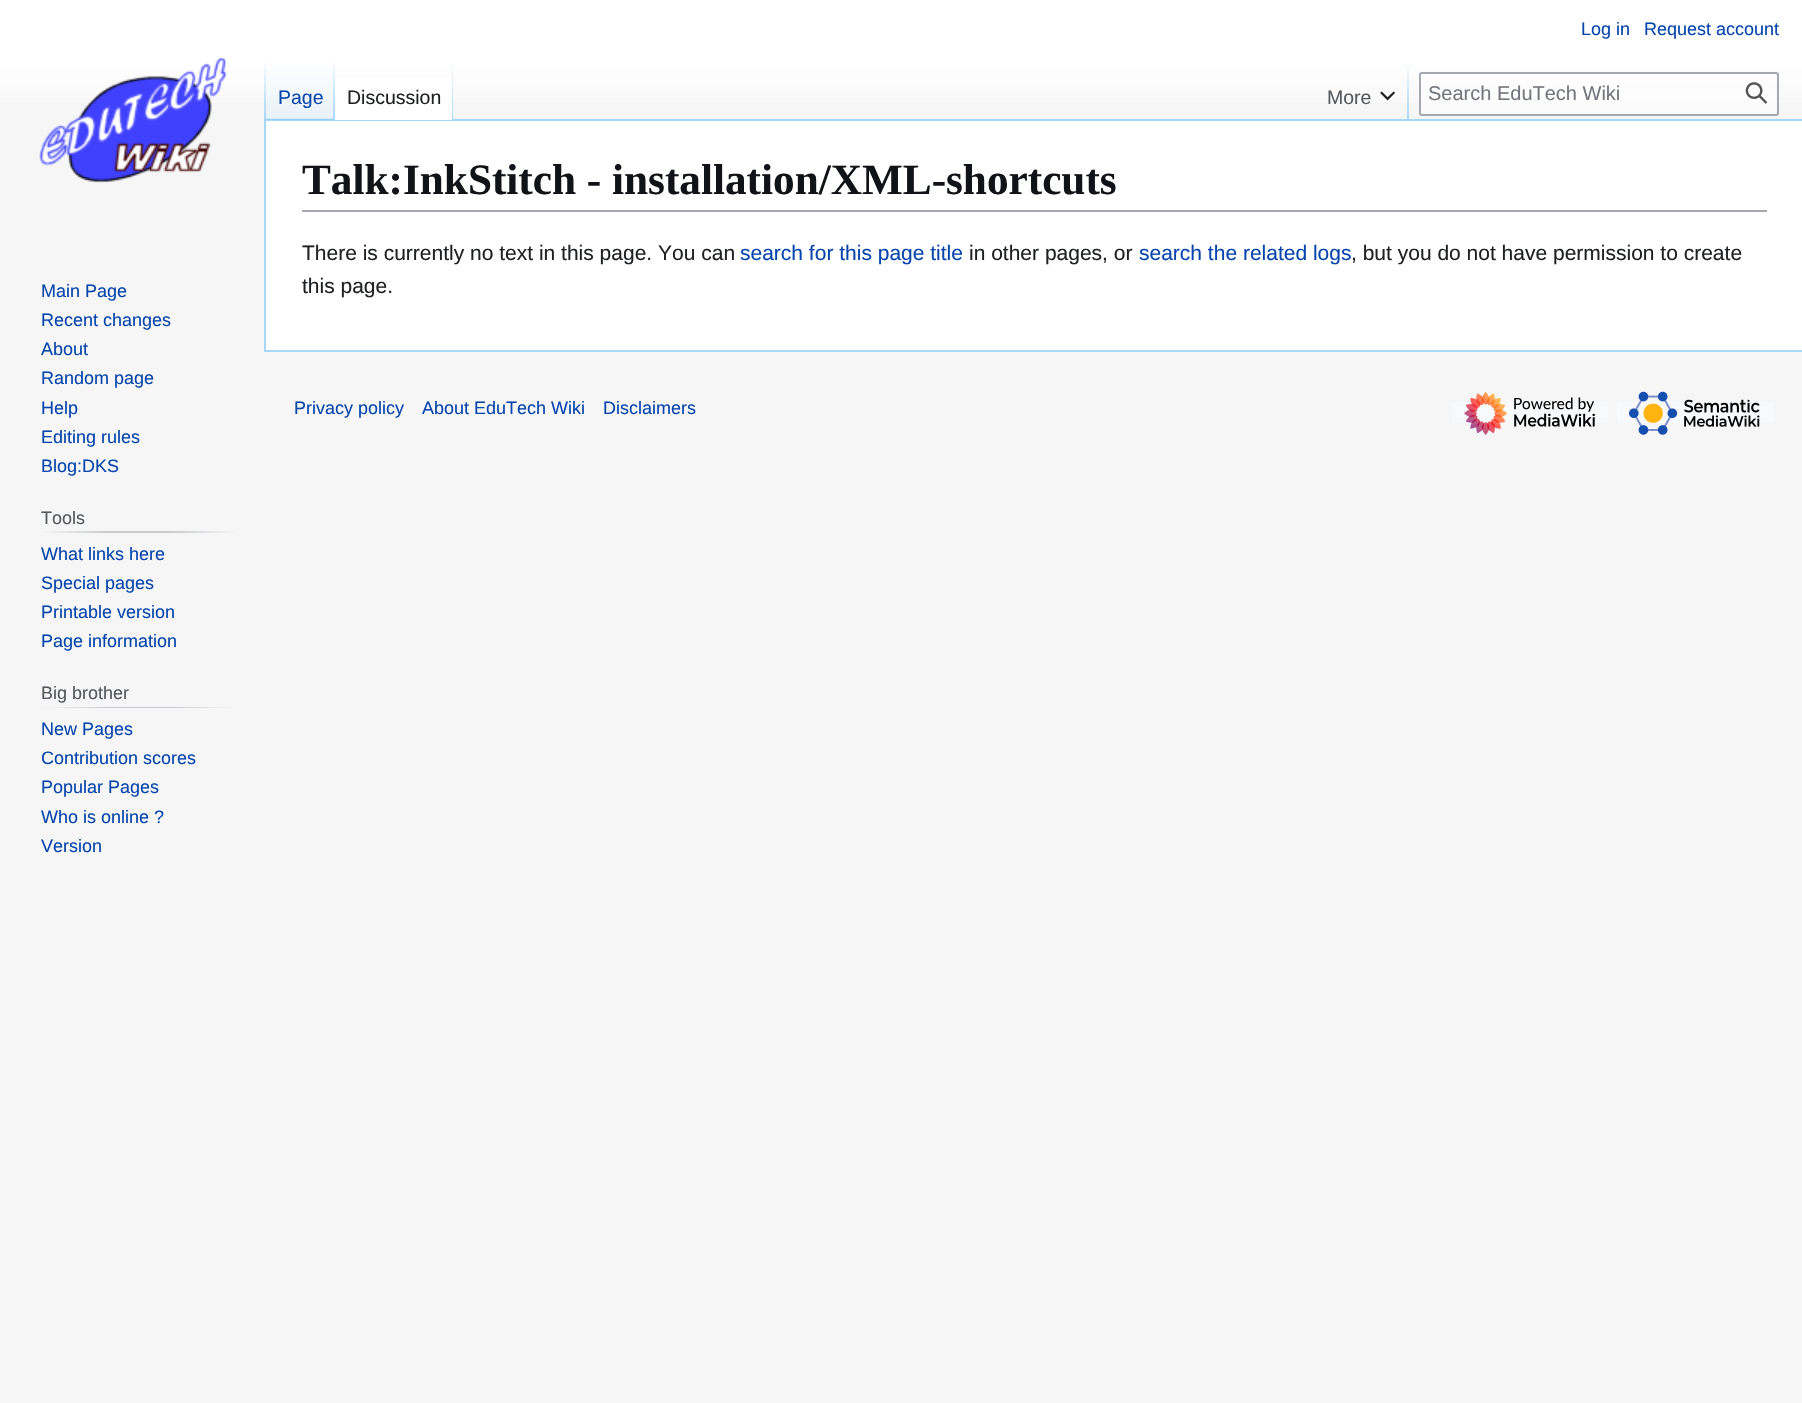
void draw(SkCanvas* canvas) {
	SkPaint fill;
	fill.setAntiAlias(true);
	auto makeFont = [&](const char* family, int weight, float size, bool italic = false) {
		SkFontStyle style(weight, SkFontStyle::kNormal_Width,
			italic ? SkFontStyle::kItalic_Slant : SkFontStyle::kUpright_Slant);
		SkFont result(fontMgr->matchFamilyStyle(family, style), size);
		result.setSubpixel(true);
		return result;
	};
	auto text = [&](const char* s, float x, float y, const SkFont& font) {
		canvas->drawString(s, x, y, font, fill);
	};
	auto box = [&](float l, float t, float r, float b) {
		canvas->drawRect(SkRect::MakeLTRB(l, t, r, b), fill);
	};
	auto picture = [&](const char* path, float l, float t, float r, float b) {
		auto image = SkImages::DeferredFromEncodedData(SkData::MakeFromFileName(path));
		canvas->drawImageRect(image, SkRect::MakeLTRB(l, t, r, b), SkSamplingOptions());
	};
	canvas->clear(0xFFF6F6F6);
	{
		const SkColor colors[] = {0xFFFFFFFF, 0xFFF6F6F6};
		const float stops[] = {0.5f, 1};
		const SkPoint ends[] = {{902, 0}, {902, 120}};
		fill.setShader(SkGradientShader::MakeLinear(ends, colors, stops, 2, SkTileMode::kClamp));
		fill.setAlpha(255);
	}
	box(0, 0, 1802, 103);
	fill.setShader(nullptr);
	fill.setColor(0xFFA7D7F9);
	box(264, 119, 1802, 121);
	box(264, 350, 1802, 352);
	box(264, 119, 266, 351);
	{
		const SkColor colors[] = {0x00A7D7F9, 0xFFA7D7F9};
		const float stops[] = {0, 1};
		const SkPoint ends[] = {{265, 60}, {265, 120}};
		fill.setShader(SkGradientShader::MakeLinear(ends, colors, stops, 2, SkTileMode::kClamp));
		fill.setAlpha(255);
	}
	box(264, 60, 266, 120);
	{
		const SkColor colors[] = {0xFF77C1F6, 0xFFE8F2F8, 0xFFFFFFFF};
		const float stops[] = {0, 0.03f, 1};
		const SkPoint ends[] = {{300, 120}, {300, 60}};
		fill.setShader(SkGradientShader::MakeLinear(ends, colors, stops, 3, SkTileMode::kClamp));
		fill.setAlpha(255);
	}
	box(266, 69, 335, 120);
	{
		const SkColor colors[] = {0x00A7D7F9, 0xFFA7D7F9};
		const float stops[] = {0, 1};
		const SkPoint ends[] = {{334, 60}, {334, 120}};
		fill.setShader(SkGradientShader::MakeLinear(ends, colors, stops, 2, SkTileMode::kClamp));
		fill.setAlpha(255);
	}
	box(333, 60, 335, 120);
	fill.setShader(nullptr);
	fill.setColor(0xFFFFFFFF);
	box(335, 77, 452, 120);
	{
		const SkColor colors[] = {0xFFFFFFFF, 0xFFA7D7F9};
		const float stops[] = {0, 1};
		const SkPoint ends[] = {{452, 60}, {452, 120}};
		fill.setShader(SkGradientShader::MakeLinear(ends, colors, stops, 2, SkTileMode::kClamp));
		fill.setAlpha(255);
	}
	box(452, 60, 453, 120);
	{
		const SkColor colors[] = {0x00A7D7F9, 0xFFA7D7F9};
		const float stops[] = {0, 1};
		const SkPoint ends[] = {{1408, 60}, {1408, 120}};
		fill.setShader(SkGradientShader::MakeLinear(ends, colors, stops, 2, SkTileMode::kClamp));
		fill.setAlpha(255);
	}
	box(1407, 60, 1409, 120);
	picture("image0.png", 1380, 91, 1395, 101);
	fill.setShader(nullptr);
	fill.setColor(0x80FFFFFF);
	canvas->drawRoundRect(SkRect::MakeLTRB(1420, 73, 1778, 115), 2, 2, fill);
	fill.setStyle(SkPaint::kStroke_Style);
	fill.setStrokeWidth(2);
	fill.setColor(0xFFA2A9B1);
	canvas->drawRoundRect(SkRect::MakeLTRB(1420, 73, 1778, 115), 2, 2, fill);
	picture("image1.png", 1745, 82, 1768, 104);
	picture("image2.png", 39, 58, 227, 183);
	fill.setStyle(SkPaint::kFill_Style);
	{
		const SkColor colors[] = {0xFFF6F6F6, 0xFFC8CCD1, 0xFFC8CCD1, 0xFFF6F6F6};
		const float stops[] = {0, 0.33f, 0.66f, 1};
		const SkPoint ends[] = {{41, 532}, {237, 532}};
		fill.setShader(SkGradientShader::MakeLinear(ends, colors, stops, 4, SkTileMode::kClamp));
		fill.setAlpha(255);
	}
	box(41, 531, 237, 533);
	{
		const SkColor colors[] = {0xFFF6F6F6, 0xFFC8CCD1, 0xFFC8CCD1, 0xFFF6F6F6};
		const float stops[] = {0, 0.33f, 0.66f, 1};
		const SkPoint ends[] = {{41, 707}, {237, 707}};
		fill.setShader(SkGradientShader::MakeLinear(ends, colors, stops, 4, SkTileMode::kClamp));
		fill.setAlpha(255);
	}
	box(41, 707, 237, 708);
	fill.setShader(nullptr);
	fill.setColor(0xFFFFFFFF);
	box(266, 121, 1802, 350);
	fill.setColor(0xFFA2A9B1);
	box(302, 210, 1767, 212);
	fill.setColor(0xFFF8F9FA);
	box(1452, 402, 1608, 423);
	picture("image3.png", 1464, 391, 1595, 435);
	box(1617, 402, 1773, 423);
	picture("image4.png", 1629, 391, 1760, 435);
	auto font1 = makeFont("Liberation Sans", 400, 18);
	fill.setColor(0xFF0645AD);
	text("Log in", 1581, 35, font1);
	text("Request account", 1644, 35, font1);
	auto font2 = makeFont("Liberation Sans", 400, 19.5f);
	text("Page", 278, 104, font2);
	fill.setColor(0xFF202122);
	text("Discussion", 347, 104, font2);
	fill.setColor(0xFF54595D);
	text("More", 1327, 104, font2);
	auto font3 = makeFont("Liberation Sans", 400, 20);
	fill.setColor(0xFF72777D);
	text("Search EduTech Wiki", 1428, 100, font3);
	fill.setColor(0xFF0645AD);
	text("Main Page", 41, 297, font1);
	text("Recent changes", 41, 326, font1);
	text("About", 41, 355, font1);
	text("Random page", 41, 384, font1);
	text("Help", 41, 414, font1);
	text("Editing rules", 41, 443, font1);
	text("Blog:DKS", 41, 472, font1);
	fill.setColor(0xFF54595D);
	text("Tools", 41, 524, font1);
	fill.setColor(0xFF0645AD);
	text("What links here", 41, 560, font1);
	text("Special pages", 41, 589, font1);
	text("Printable version", 41, 618, font1);
	text("Page information", 41, 647, font1);
	fill.setColor(0xFF54595D);
	text("Big brother", 41, 699, font1);
	fill.setColor(0xFF0645AD);
	text("New Pages", 41, 735, font1);
	text("Contribution scores", 41, 764, font1);
	text("Popular Pages", 41, 793, font1);
	text("Who is online ?", 41, 823, font1);
	text("Version", 41, 852, font1);
	auto font4 = makeFont("Liberation Serif", 700, 43.25f);
	fill.setColor(0xFF101418);
	text("Talk:InkStitch - installation/XML-shortcuts", 302, 194, font4);
	auto font5 = makeFont("Liberation Sans", 400, 21);
	fill.setColor(0xFF202122);
	text("There is currently no text in this page. You can", 302, 260, font5);
	fill.setColor(0xFF0645AD);
	text("search for this page title", 740, 260, font5);
	fill.setColor(0xFF202122);
	text("in other pages, or", 969, 260, font5);
	fill.setColor(0xFF0645AD);
	text("search the related logs", 1139, 260, font5);
	fill.setColor(0xFF202122);
	text(", but you do not have permission to create", 1351, 260, font5);
	text("this page.", 302, 293, font5);
	fill.setColor(0xFF0645AD);
	text("Privacy policy", 294, 414, font1);
	text("About EduTech Wiki", 422, 414, font1);
	text("Disclaimers", 603, 414, font1);
}
